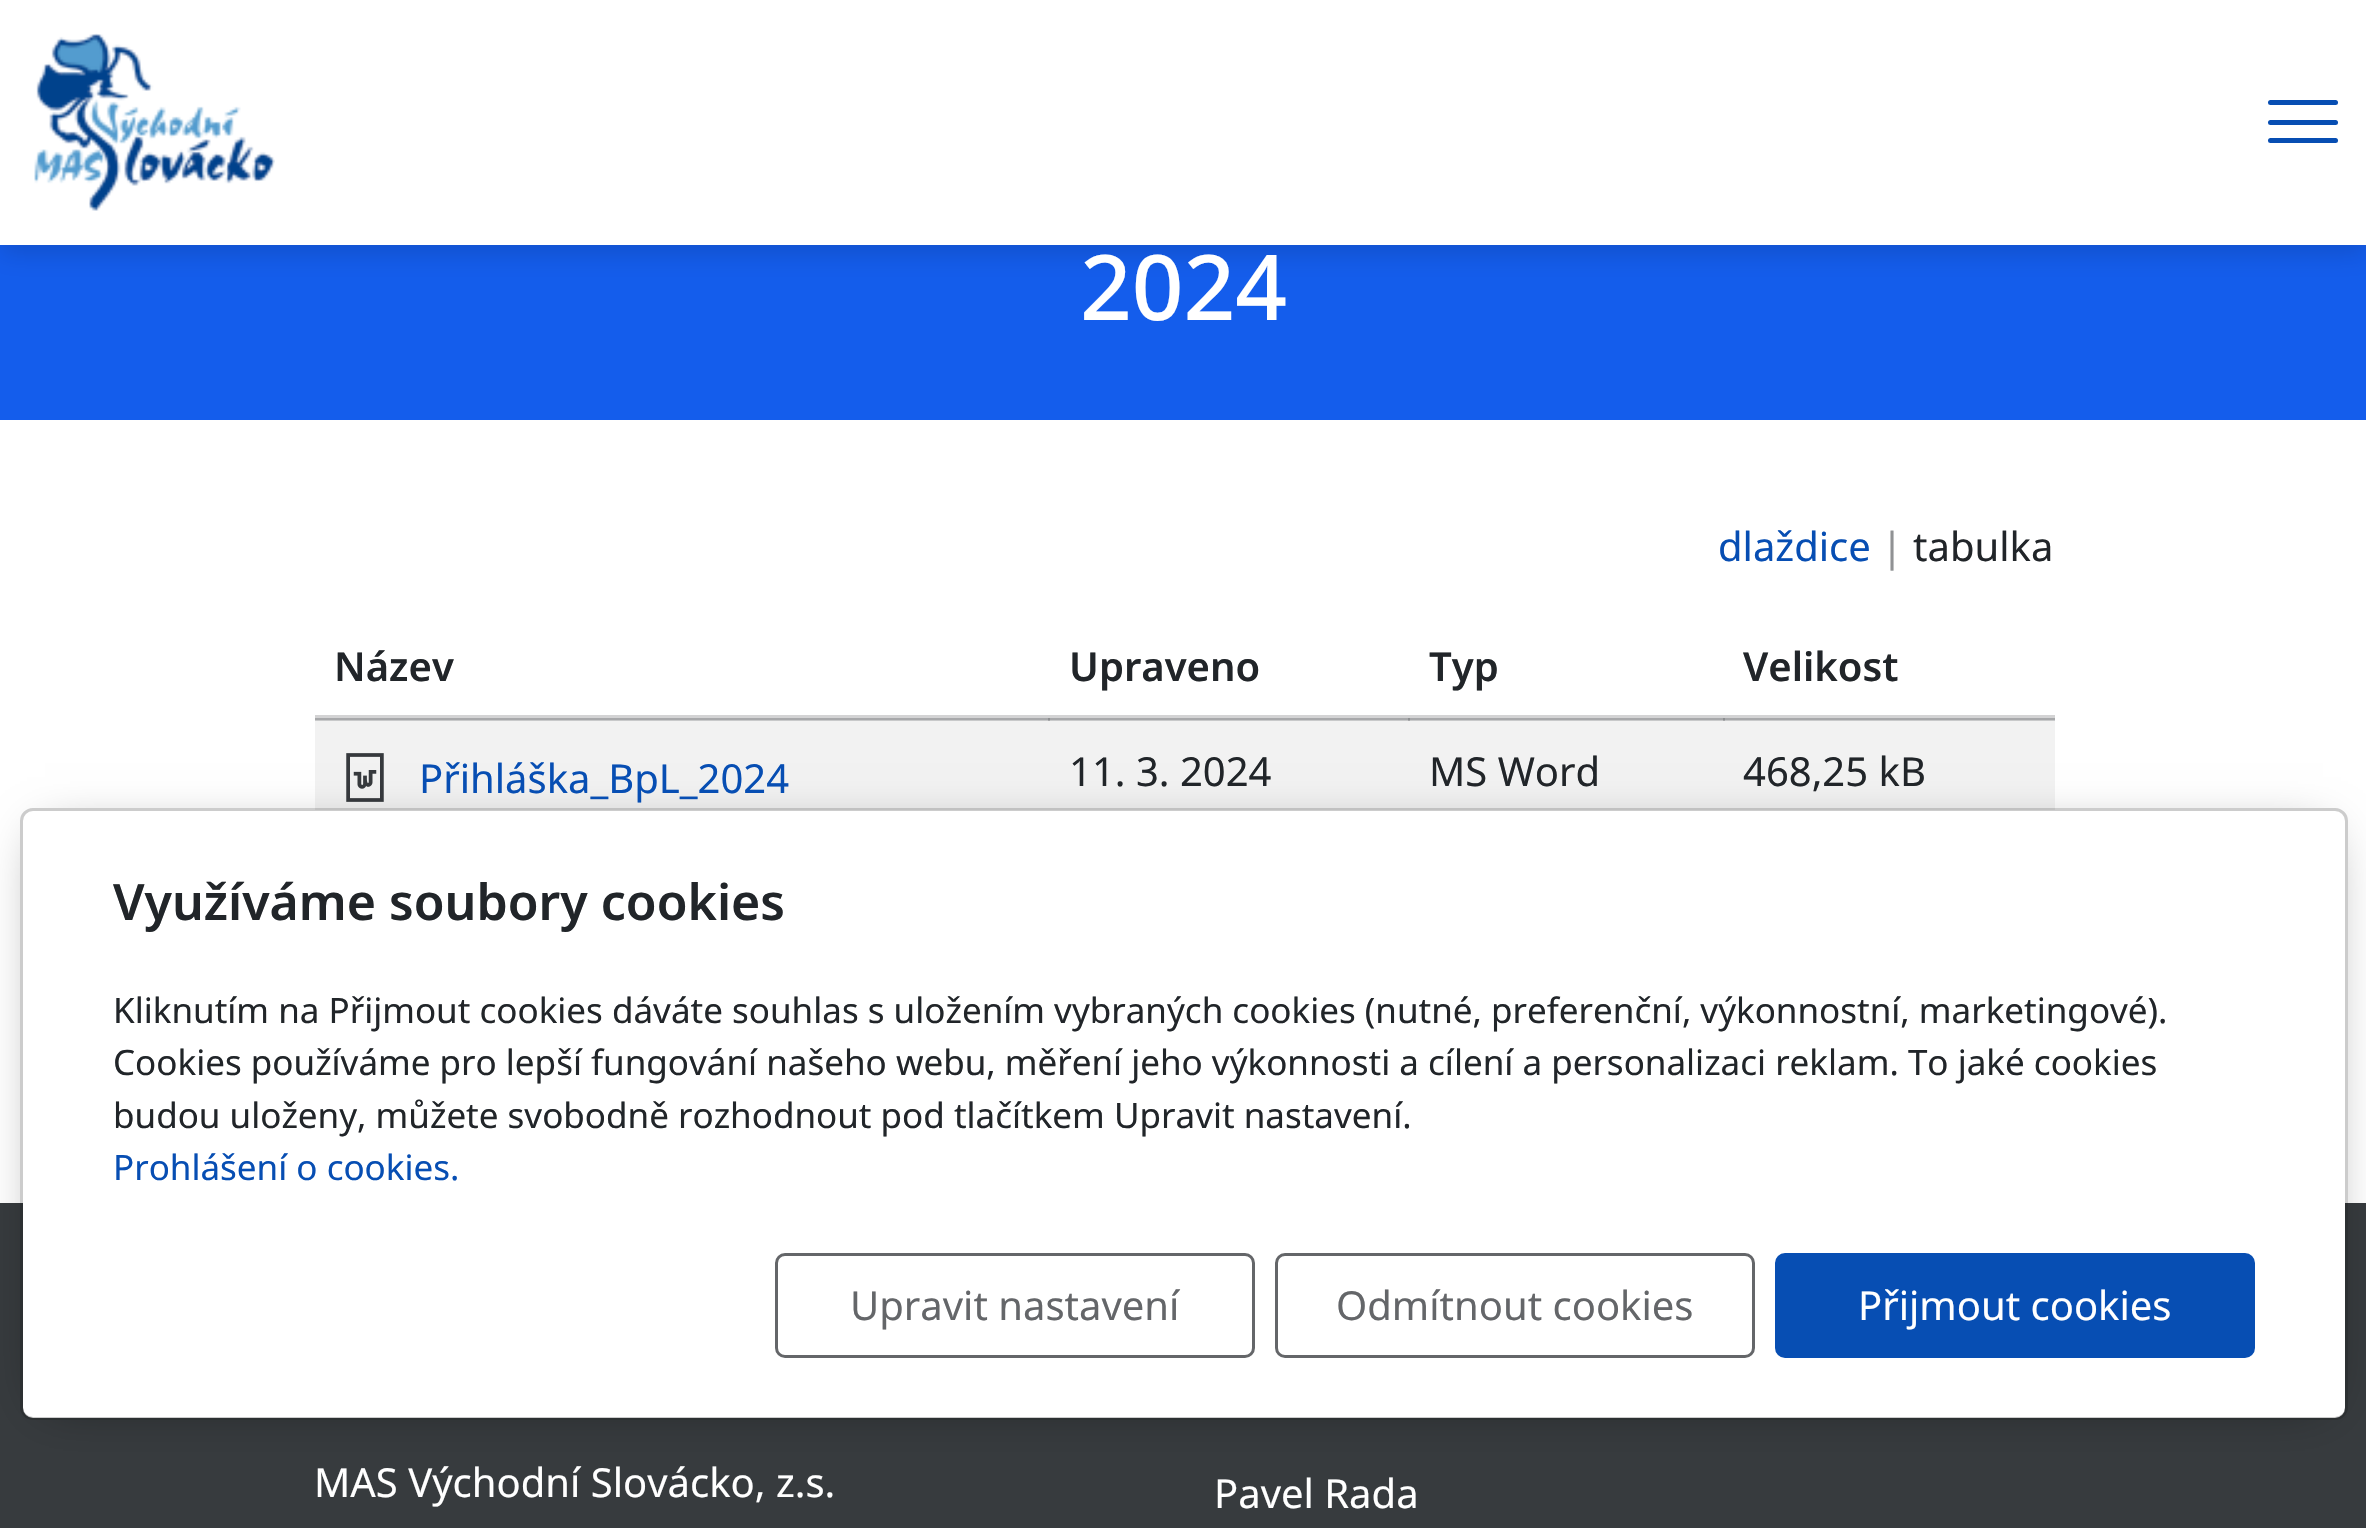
void draw(SkCanvas* canvas) {
	SkPaint fill;
	fill.setAntiAlias(true);
	auto makeFont = [&](const char* family, int weight, float size, bool italic = false) {
		SkFontStyle style(weight, SkFontStyle::kNormal_Width,
			italic ? SkFontStyle::kItalic_Slant : SkFontStyle::kUpright_Slant);
		SkFont result(fontMgr->matchFamilyStyle(family, style), size);
		result.setSubpixel(true);
		return result;
	};
	auto text = [&](const char* s, float x, float y, const SkFont& font) {
		canvas->drawString(s, x, y, font, fill);
	};
	auto box = [&](float l, float t, float r, float b) {
		canvas->drawRect(SkRect::MakeLTRB(l, t, r, b), fill);
	};
	auto roundBox = [&](float l, float t, float r, float b, float radius) {
		canvas->drawRoundRect(SkRect::MakeLTRB(l, t, r, b), radius, radius, fill);
	};
	auto picture = [&](const char* path, float l, float t, float r, float b) {
		auto image = SkImages::DeferredFromEncodedData(SkData::MakeFromFileName(path));
		canvas->drawImageRect(image, SkRect::MakeLTRB(l, t, r, b), SkSamplingOptions());
	};
	canvas->clear(0xFFFFFFFF);
	fill.setColor(0xFFD3D3D4);
	box(315, 715, 2055, 718);
	fill.setColor(0xFF145DEC);
	box(0, 245, 2366, 420);
	fill.setColor(0x24000000);
	fill.setMaskFilter(SkMaskFilter::MakeBlur(kNormal_SkBlurStyle, 12.5f));
	canvas->drawRect(SkRect::MakeLTRB(0, 8, 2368, 253), fill);
	fill.setMaskFilter(nullptr);
	fill.setColor(0xFFFFFFFF);
	box(0, 0, 2366, 245);
	picture("image0.png", 34, 33, 275, 211);
	fill.setColor(0xFF074EB3);
	roundBox(2268, 100, 2338, 105, 2.5f);
	roundBox(2268, 120, 2338, 125, 2.5f);
	roundBox(2268, 138, 2338, 143, 2.5f);
	fill.setColor(0xFFC8C9CA);
	box(315, 720, 2055, 721);
	fill.setColor(0xFFA7A8AA);
	box(315, 718, 2055, 720);
	box(1723, 718, 1725, 721);
	fill.setColor(0xFF8C8E90);
	box(1723, 718, 1725, 720);
	fill.setColor(0xFFF2F2F2);
	box(315, 721, 2055, 810);
	fill.setColor(0xFFA7A8AA);
	box(1048, 718, 1050, 721);
	fill.setColor(0xFF8C8E90);
	box(1048, 718, 1050, 720);
	picture("image1.png", 346, 753, 384, 802);
	fill.setColor(0xFFA7A8AA);
	box(1408, 718, 1410, 721);
	fill.setColor(0xFF8C8E90);
	box(1408, 718, 1410, 720);
	fill.setColor(0xFF373B3E);
	box(0, 1203, 2366, 1528);
	canvas->save();
	canvas->clipPath(SkPathBuilder(SkPathFillType::kEvenOdd).moveTo(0, 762).lineTo(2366, 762).lineTo(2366, 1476).lineTo(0, 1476).close().moveTo(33, 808).lineTo(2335, 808).cubicTo(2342, 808, 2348, 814, 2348, 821).lineTo(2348, 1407).cubicTo(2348, 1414, 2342, 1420, 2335, 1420).lineTo(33, 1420).cubicTo(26, 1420, 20, 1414, 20, 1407).lineTo(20, 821).cubicTo(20, 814, 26, 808, 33, 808).close().detach(), true);
	fill.setColor(0x80000000);
	fill.setMaskFilter(SkMaskFilter::MakeBlur(kNormal_SkBlurStyle, 25));
	canvas->drawRect(SkRect::MakeLTRB(45, 838, 2323, 1400), fill);
	fill.setMaskFilter(nullptr);
	canvas->restore();
	fill.setColor(0xFFFFFFFF);
	roundBox(23, 810, 2345, 1418, 10);
	fill.setStyle(SkPaint::kStroke_Style);
	fill.setStrokeWidth(3);
	fill.setColor(0x33000000);
	canvas->drawRoundRect(SkRect::MakeLTRB(21.5f, 809.5f, 2346.5f, 1418.5f), 11.5f, 11.5f, fill);
	fill.setColor(0xFF646669);
	canvas->drawRoundRect(SkRect::MakeLTRB(776.5f, 1254.5f, 1253.5f, 1356.5f), 8.5f, 8.5f, fill);
	canvas->drawRoundRect(SkRect::MakeLTRB(1276.5f, 1254.5f, 1753.5f, 1356.5f), 8.5f, 8.5f, fill);
	fill.setStyle(SkPaint::kFill_Style);
	fill.setColor(0xFF074EB3);
	canvas->drawRoundRect(SkRect::MakeLTRB(1776.5f, 1254.5f, 2253.5f, 1356.5f), 8.5f, 8.5f, fill);
	fill.setStyle(SkPaint::kStroke_Style);
	canvas->drawRoundRect(SkRect::MakeLTRB(1776.5f, 1254.5f, 2253.5f, 1356.5f), 8.5f, 8.5f, fill);
	auto font1 = makeFont("Noto Sans", 500, 90.5f);
	fill.setStyle(SkPaint::kFill_Style);
	fill.setColor(0xFFFFFFFF);
	text("2024", 1080, 320, font1);
	auto font2 = makeFont("Noto Sans", 400, 40);
	fill.setColor(0xFF074EB3);
	text("dlaždice", 1718, 561, font2);
	fill.setColor(0xFF909294);
	text("|", 1881, 561, font2);
	fill.setColor(0xFF212529);
	text("tabulka", 1913, 561, font2);
	auto font3 = makeFont("Noto Sans", 600, 40);
	text("Název", 334, 681, font3);
	text("Upraveno", 1069, 681, font3);
	text("Typ", 1429, 681, font3);
	text("Velikost", 1743, 681, font3);
	fill.setColor(0xFF074EB3);
	text("Přihláška_BpL_2024", 419, 793, font2);
	fill.setColor(0xFF212529);
	text("11. 3. 2024", 1069, 786, font2);
	text("MS Word", 1429, 786, font2);
	text("468,25 kB", 1743, 786, font2);
	auto font4 = makeFont("Noto Sans", 600, 50);
	text("Využíváme soubory cookies", 113, 920, font4);
	auto font5 = makeFont("Noto Sans", 400, 35);
	text("Kliknutím na Přijmout cookies dáváte souhlas s uložením vybraných cookies (nutné, preferenční, výkonnostní, marketingové).", 113, 1023, font5);
	text("Cookies používáme pro lepší fungování našeho webu, měření jeho výkonnosti a cílení a personalizaci reklam. To jaké cookies", 113, 1075, font5);
	text("budou uloženy, můžete svobodně rozhodnout pod tlačítkem Upravit nastavení.", 113, 1128, font5);
	fill.setColor(0xFF074EB3);
	text("Prohlášení o cookies.", 113, 1180, font5);
	fill.setColor(0xFF646669);
	text("Upravit nastavení", 850, 1320, font2);
	text("Odmítnout cookies", 1336, 1320, font2);
	fill.setColor(0xFFFFFFFF);
	text("Přijmout cookies", 1858, 1320, font2);
	text("MAS Východní Slovácko, z.s.", 314, 1497, font2);
	text("Pavel Rada", 1214, 1508, font2);
}
